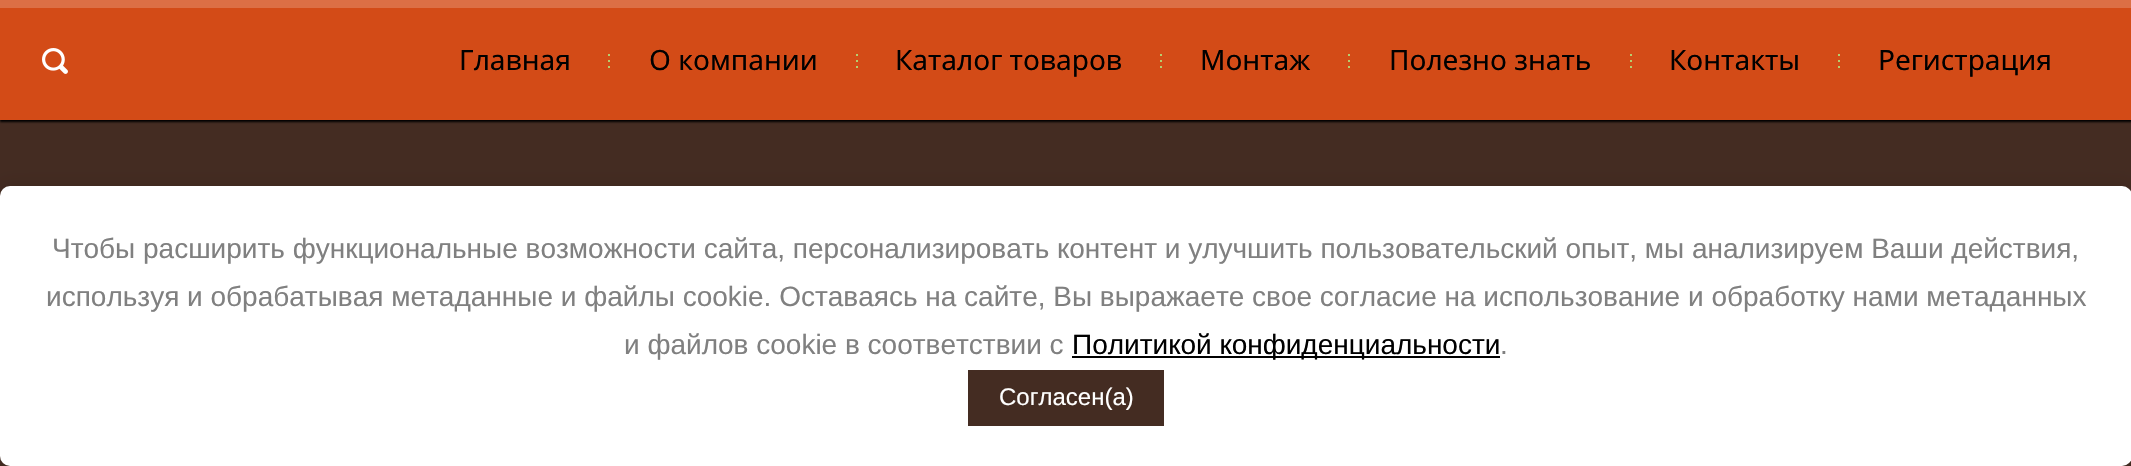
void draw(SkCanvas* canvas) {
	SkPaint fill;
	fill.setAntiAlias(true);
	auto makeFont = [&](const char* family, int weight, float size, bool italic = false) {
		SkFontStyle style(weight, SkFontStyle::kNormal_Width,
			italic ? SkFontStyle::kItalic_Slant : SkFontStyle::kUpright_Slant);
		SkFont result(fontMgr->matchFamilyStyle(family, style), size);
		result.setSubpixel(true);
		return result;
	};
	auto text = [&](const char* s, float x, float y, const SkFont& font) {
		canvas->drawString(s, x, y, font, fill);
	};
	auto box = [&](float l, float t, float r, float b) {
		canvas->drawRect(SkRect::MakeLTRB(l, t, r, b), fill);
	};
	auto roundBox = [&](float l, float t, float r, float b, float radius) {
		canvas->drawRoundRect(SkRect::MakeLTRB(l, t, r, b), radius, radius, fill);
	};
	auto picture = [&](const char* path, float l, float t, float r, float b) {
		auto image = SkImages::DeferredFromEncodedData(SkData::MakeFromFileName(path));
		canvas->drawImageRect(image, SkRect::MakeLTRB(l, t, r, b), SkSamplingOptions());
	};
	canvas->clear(0xFF442C22);
	fill.setColor(0xFF000000);
	fill.setMaskFilter(SkMaskFilter::MakeBlur(kNormal_SkBlurStyle, 1));
	canvas->drawRect(SkRect::MakeLTRB(0, 2, 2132, 122), fill);
	fill.setMaskFilter(nullptr);
	fill.setColor(0xFFD34B17);
	box(0, 8, 2131, 120);
	fill.setColor(0xFFDC6F45);
	box(0, 0, 2131, 8);
	picture("image0.png", 42, 48, 68, 74);
	fill.setColor(0xFFB5CF6F);
	box(608, 66, 610, 68);
	box(608, 60, 610, 62);
	box(608, 54, 610, 56);
	box(856, 66, 858, 68);
	box(856, 60, 858, 62);
	box(856, 54, 858, 56);
	box(1160, 66, 1162, 68);
	box(1160, 60, 1162, 62);
	box(1160, 54, 1162, 56);
	box(1348, 66, 1350, 68);
	box(1348, 60, 1350, 62);
	box(1348, 54, 1350, 56);
	box(1630, 66, 1632, 68);
	box(1630, 60, 1632, 62);
	box(1630, 54, 1632, 56);
	box(1838, 66, 1840, 68);
	box(1838, 60, 1840, 62);
	box(1838, 54, 1840, 56);
	fill.setColor(0x26000000);
	fill.setMaskFilter(SkMaskFilter::MakeBlur(kNormal_SkBlurStyle, 10));
	canvas->drawRoundRect(SkRect::MakeLTRB(0, 188, 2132, 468), 10, 10, fill);
	fill.setMaskFilter(nullptr);
	fill.setColor(0xFFFFFFFF);
	roundBox(0, 186, 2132, 466, 10);
	fill.setColor(0xFF000000);
	box(1072, 356, 1500, 358);
	fill.setColor(0xFF442C22);
	box(968, 370, 1164, 426);
	auto font1 = makeFont("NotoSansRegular", 400, 28);
	fill.setColor(0xFF000000);
	text("Главная", 459, 70, font1);
	text("О компании", 649, 70, font1);
	text("Каталог товаров", 895, 70, font1);
	text("Монтаж", 1200, 70, font1);
	text("Полезно знать", 1389, 70, font1);
	text("Контакты", 1669, 70, font1);
	text("Регистрация", 1878, 70, font1);
	auto font2 = makeFont("Liberation Sans", 400, 28);
	fill.setColor(0xFF808080);
	text("Чтобы расширить функциональные возможности сайта, персонализировать контент и улучшить пользовательский опыт, мы анализируем Ваши действия,", 52, 258, font2);
	text("используя и обрабатывая метаданные и файлы cookie. Оставаясь на сайте, Вы выражаете свое согласие на использование и обработку нами метаданных", 46, 306, font2);
	text("и файлов cookie в соответствии с", 624, 354, font2);
	fill.setColor(0xFF000000);
	text("Политикой конфиденциальности", 1072, 354, font2);
	fill.setColor(0xFF808080);
	text(".", 1500, 354, font2);
	auto font3 = makeFont("Liberation Sans", 400, 24);
	fill.setColor(0xFFFFFFFF);
	text("Согласен(а)", 999, 405, font3);
}
